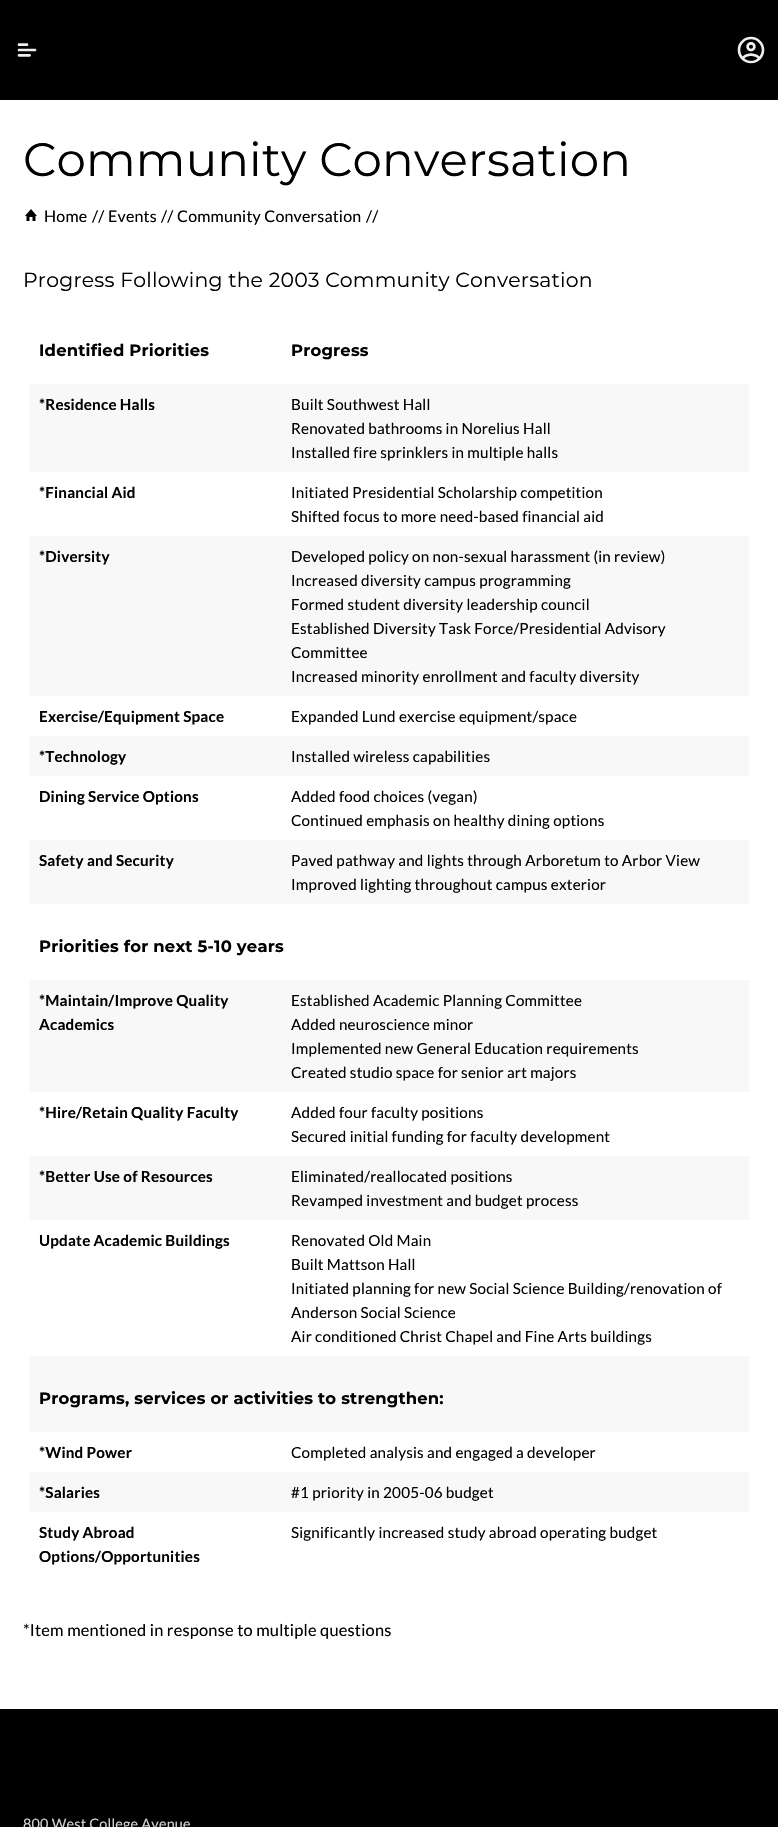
void draw(SkCanvas* canvas) {
	SkPaint fill;
	fill.setAntiAlias(true);
	auto makeFont = [&](const char* family, int weight, float size, bool italic = false) {
		SkFontStyle style(weight, SkFontStyle::kNormal_Width,
			italic ? SkFontStyle::kItalic_Slant : SkFontStyle::kUpright_Slant);
		SkFont result(fontMgr->matchFamilyStyle(family, style), size);
		result.setSubpixel(true);
		return result;
	};
	auto spacedText = [&](const char* s, float x, float y, const SkFont& font, const SkPaint& ink, float letter, float word) {
		std::vector<SkGlyphID> glyphs(font.countText(s, strlen(s), SkTextEncoding::kUTF8));
		std::vector<float> xs(glyphs.size());
		font.textToGlyphs(s, strlen(s), SkTextEncoding::kUTF8, glyphs);
		font.getXPos(glyphs, xs, x);
		float extra = 0;
		for (size_t i = 0; i < glyphs.size(); i++) {
			xs[i] += extra;
			extra += letter + word * (glyphs[i] == font.unicharToGlyph(' '));
		}
		canvas->drawTextBlob(SkTextBlob::MakeFromPosHGlyphs(glyphs, xs, y, font), 0, 0, ink);
	};
	auto box = [&](float l, float t, float r, float b) {
		canvas->drawRect(SkRect::MakeLTRB(l, t, r, b), fill);
	};
	auto picture = [&](const char* path, float l, float t, float r, float b) {
		auto image = SkImages::DeferredFromEncodedData(SkData::MakeFromFileName(path));
		canvas->drawImageRect(image, SkRect::MakeLTRB(l, t, r, b), SkSamplingOptions());
	};
	canvas->clear(0xFFFFFFFF);
	fill.setColor(0xFF000000);
	box(0, 0, 778, 100);
	picture("image0.png", 17, 43, 37, 57);
	picture("image1.png", 737, 36, 765, 64);
	picture("image2.png", 25, 209, 37, 221);
	fill.setColor(0xFFF8F8F8);
	box(29, 384, 749, 472);
	box(29, 536, 749, 696);
	box(29, 736, 749, 776);
	box(29, 840, 749, 904);
	box(29, 980, 749, 1092);
	box(29, 1156, 749, 1220);
	box(29, 1356, 749, 1432);
	box(29, 1472, 749, 1512);
	fill.setColor(0xFF000000);
	box(0, 1709, 778, 1827);
	auto font1 = makeFont("Montserrat", 400, 46.8f);
	spacedText("Community Conversation", 23, 176, font1, fill, 0.2f, 0);
	auto font2 = makeFont("Lato", 400, 16);
	spacedText("Home", 44, 222, font2, fill, 0.2f, 0);
	spacedText("//", 92, 222, font2, fill, 0.2f, 0);
	spacedText("Events", 108, 222, font2, fill, 0.2f, 0);
	spacedText("//", 161, 222, font2, fill, 0.2f, 0);
	spacedText("Community Conversation", 177, 222, font2, fill, 0.2f, 0);
	spacedText("//", 366, 222, font2, fill, 0.2f, 0);
	auto font3 = makeFont("Montserrat", 400, 20.4f);
	spacedText("Progress Following the 2003 Community Conversation", 23, 287, font3, fill, 0.2f, 0);
	auto font4 = makeFont("Montserrat", 700, 16.4f);
	spacedText("Identified Priorities", 39, 356, font4, fill, 0.2f, 0);
	spacedText("Progress", 291, 356, font4, fill, 0.2f, 0);
	auto font5 = makeFont("Lato", 700, 15.2f);
	spacedText("*Residence Halls", 39, 410, font5, fill, 0.2f, 0);
	auto font6 = makeFont("Lato", 400, 15.2f);
	spacedText("Built Southwest Hall", 291, 410, font6, fill, 0.2f, 0);
	spacedText("Renovated bathrooms in Norelius Hall", 291, 434, font6, fill, 0.2f, 0);
	spacedText("Installed fire sprinklers in multiple halls", 291, 458, font6, fill, 0.2f, 0);
	spacedText("*Financial Aid", 39, 498, font5, fill, 0.2f, 0);
	spacedText("Initiated Presidential Scholarship competition", 291, 498, font6, fill, 0.2f, 0);
	spacedText("Shifted focus to more need-based financial aid", 291, 522, font6, fill, 0.2f, 0);
	spacedText("*Diversity", 39, 562, font5, fill, 0.2f, 0);
	spacedText("Developed policy on non-sexual harassment (in review)", 291, 562, font6, fill, 0.2f, 0);
	spacedText("Increased diversity campus programming", 291, 586, font6, fill, 0.2f, 0);
	spacedText("Formed student diversity leadership council", 291, 610, font6, fill, 0.2f, 0);
	spacedText("Established Diversity Task Force/Presidential Advisory", 291, 634, font6, fill, 0.2f, 0);
	spacedText("Committee", 291, 658, font6, fill, 0.2f, 0);
	spacedText("Increased minority enrollment and faculty diversity", 291, 682, font6, fill, 0.2f, 0);
	spacedText("Exercise/Equipment Space", 39, 722, font5, fill, 0.2f, 0);
	spacedText("Expanded Lund exercise equipment/space", 291, 722, font6, fill, 0.2f, 0);
	spacedText("*Technology", 39, 762, font5, fill, 0.2f, 0);
	spacedText("Installed wireless capabilities", 291, 762, font6, fill, 0.2f, 0);
	spacedText("Dining Service Options", 39, 802, font5, fill, 0.2f, 0);
	spacedText("Added food choices (vegan)", 291, 802, font6, fill, 0.2f, 0);
	spacedText("Continued emphasis on healthy dining options", 291, 826, font6, fill, 0.2f, 0);
	spacedText("Safety and Security", 39, 866, font5, fill, 0.2f, 0);
	spacedText("Paved pathway and lights through Arboretum to Arbor View", 291, 866, font6, fill, 0.2f, 0);
	spacedText("Improved lighting throughout campus exterior", 291, 890, font6, fill, 0.2f, 0);
	spacedText("Priorities for next 5-10 years", 39, 952, font4, fill, 0.2f, 0);
	spacedText("*Maintain/Improve Quality", 39, 1006, font5, fill, 0.2f, 0);
	spacedText("Academics", 39, 1030, font5, fill, 0.2f, 0);
	spacedText("Established Academic Planning Committee", 291, 1006, font6, fill, 0.2f, 0);
	spacedText("Added neuroscience minor", 291, 1030, font6, fill, 0.2f, 0);
	spacedText("Implemented new General Education requirements", 291, 1054, font6, fill, 0.2f, 0);
	spacedText("Created studio space for senior art majors", 291, 1078, font6, fill, 0.2f, 0);
	spacedText("*Hire/Retain Quality Faculty", 39, 1118, font5, fill, 0.2f, 0);
	spacedText("Added four faculty positions", 291, 1118, font6, fill, 0.2f, 0);
	spacedText("Secured initial funding for faculty development", 291, 1142, font6, fill, 0.2f, 0);
	spacedText("*Better Use of Resources", 39, 1182, font5, fill, 0.2f, 0);
	spacedText("Eliminated/reallocated positions", 291, 1182, font6, fill, 0.2f, 0);
	spacedText("Revamped investment and budget process", 291, 1206, font6, fill, 0.2f, 0);
	spacedText("Update Academic Buildings", 39, 1246, font5, fill, 0.2f, 0);
	spacedText("Renovated Old Main", 291, 1246, font6, fill, 0.2f, 0);
	spacedText("Built Mattson Hall", 291, 1270, font6, fill, 0.2f, 0);
	spacedText("Initiated planning for new Social Science Building/renovation of", 291, 1294, font6, fill, 0.2f, 0);
	spacedText("Anderson Social Science", 291, 1318, font6, fill, 0.2f, 0);
	spacedText("Air conditioned Christ Chapel and Fine Arts buildings", 291, 1342, font6, fill, 0.2f, 0);
	spacedText("Programs, services or activities to strengthen:", 39, 1404, font4, fill, 0.2f, 0);
	spacedText("*Wind Power", 39, 1458, font5, fill, 0.2f, 0);
	spacedText("Completed analysis and engaged a developer", 291, 1458, font6, fill, 0.2f, 0);
	spacedText("*Salaries", 39, 1498, font5, fill, 0.2f, 0);
	spacedText("#1 priority in 2005-06 budget", 291, 1498, font6, fill, 0.2f, 0);
	spacedText("Study Abroad", 39, 1538, font5, fill, 0.2f, 0);
	spacedText("Options/Opportunities", 39, 1562, font5, fill, 0.2f, 0);
	spacedText("Significantly increased study abroad operating budget", 291, 1538, font6, fill, 0.2f, 0);
	auto font7 = makeFont("Lato", 400, 16.4f);
	spacedText("*Item mentioned in response to multiple questions", 23, 1636, font7, fill, 0.2f, 0);
	auto font8 = makeFont("Lato", 400, 14.4f);
	fill.setColor(0xFFCFD4D8);
	spacedText("800 West College Avenue", 23, 1829, font8, fill, 0.2f, 0);
}
